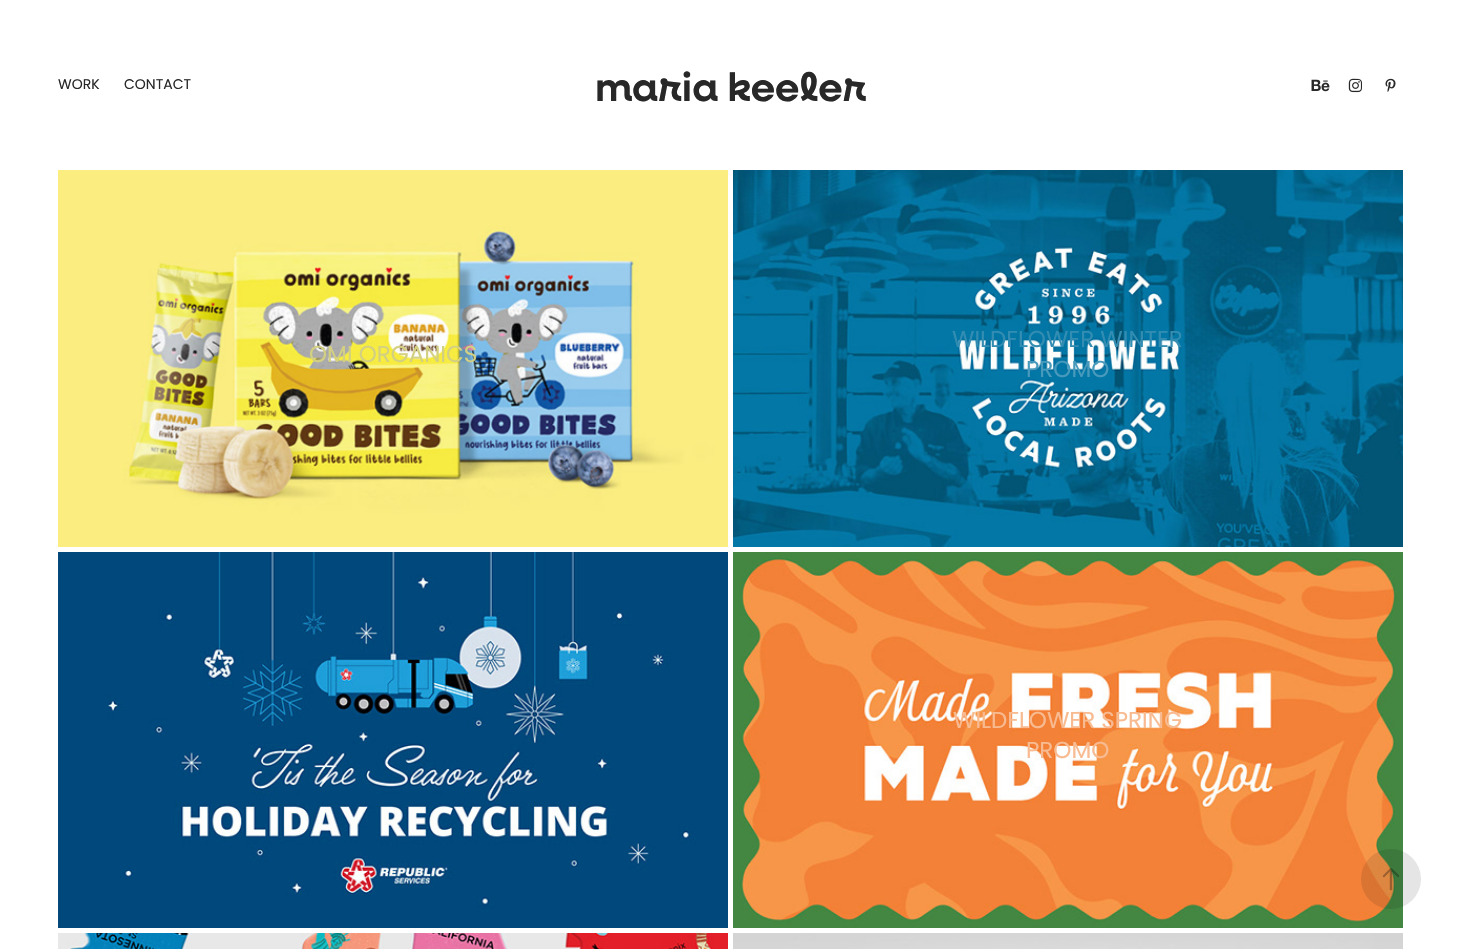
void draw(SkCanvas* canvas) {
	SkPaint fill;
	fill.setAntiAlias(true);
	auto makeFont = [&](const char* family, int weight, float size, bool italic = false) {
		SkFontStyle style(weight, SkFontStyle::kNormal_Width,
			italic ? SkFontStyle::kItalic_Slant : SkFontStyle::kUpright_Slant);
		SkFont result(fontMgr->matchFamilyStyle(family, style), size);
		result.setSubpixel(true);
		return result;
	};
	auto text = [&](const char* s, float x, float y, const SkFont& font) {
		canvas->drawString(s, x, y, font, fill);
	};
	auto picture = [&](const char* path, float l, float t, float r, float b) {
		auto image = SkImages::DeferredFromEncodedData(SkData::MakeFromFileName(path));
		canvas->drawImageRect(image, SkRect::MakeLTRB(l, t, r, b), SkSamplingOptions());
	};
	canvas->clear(0xFFFFFFFF);
	picture("image0.png", 1311, 79, 1330, 92);
	picture("image1.png", 1348, 78, 1362, 93);
	picture("image2.png", 1385, 78, 1396, 92);
	picture("image3.png", 58, 170, 728, 547);
	picture("image4.png", 733, 170, 1403, 547);
	picture("image5.png", 58, 552, 728, 928);
	picture("image6.png", 733, 552, 1403, 928);
	picture("image7.png", 58, 933, 728, 949);
	picture("image8.png", 733, 933, 1403, 949);
	fill.setColor(0x1A000000);
	canvas->drawCircle(1391, 879, 30, fill);
	picture("image9.png", 1382, 868, 1399, 891);
	auto font1 = makeFont("Poppins", 400, 14);
	fill.setColor(0xFF282828);
	text("WORK", 58, 89, font1);
	text("CONTACT", 124, 89, font1);
	auto font2 = makeFont("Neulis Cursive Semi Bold", 600, 40);
	text("maria keeler", 595, 101, font2);
	auto font3 = makeFont("Poppins", 400, 23);
	fill.setColor(0xFFD4D082);
	text("OMI ORGANICS", 309, 362, font3);
	fill.setColor(0xFF338DB2);
	text("WILDFLOWER WINTER", 952, 347, font3);
	fill.setColor(0xFF489ABC);
	text("PROMO", 1026, 377, font3);
	fill.setColor(0xFFF8BB91);
	text("WILDFLOWER SPRING", 953, 728, font3);
	text("PROMO", 1026, 758, font3);
}
